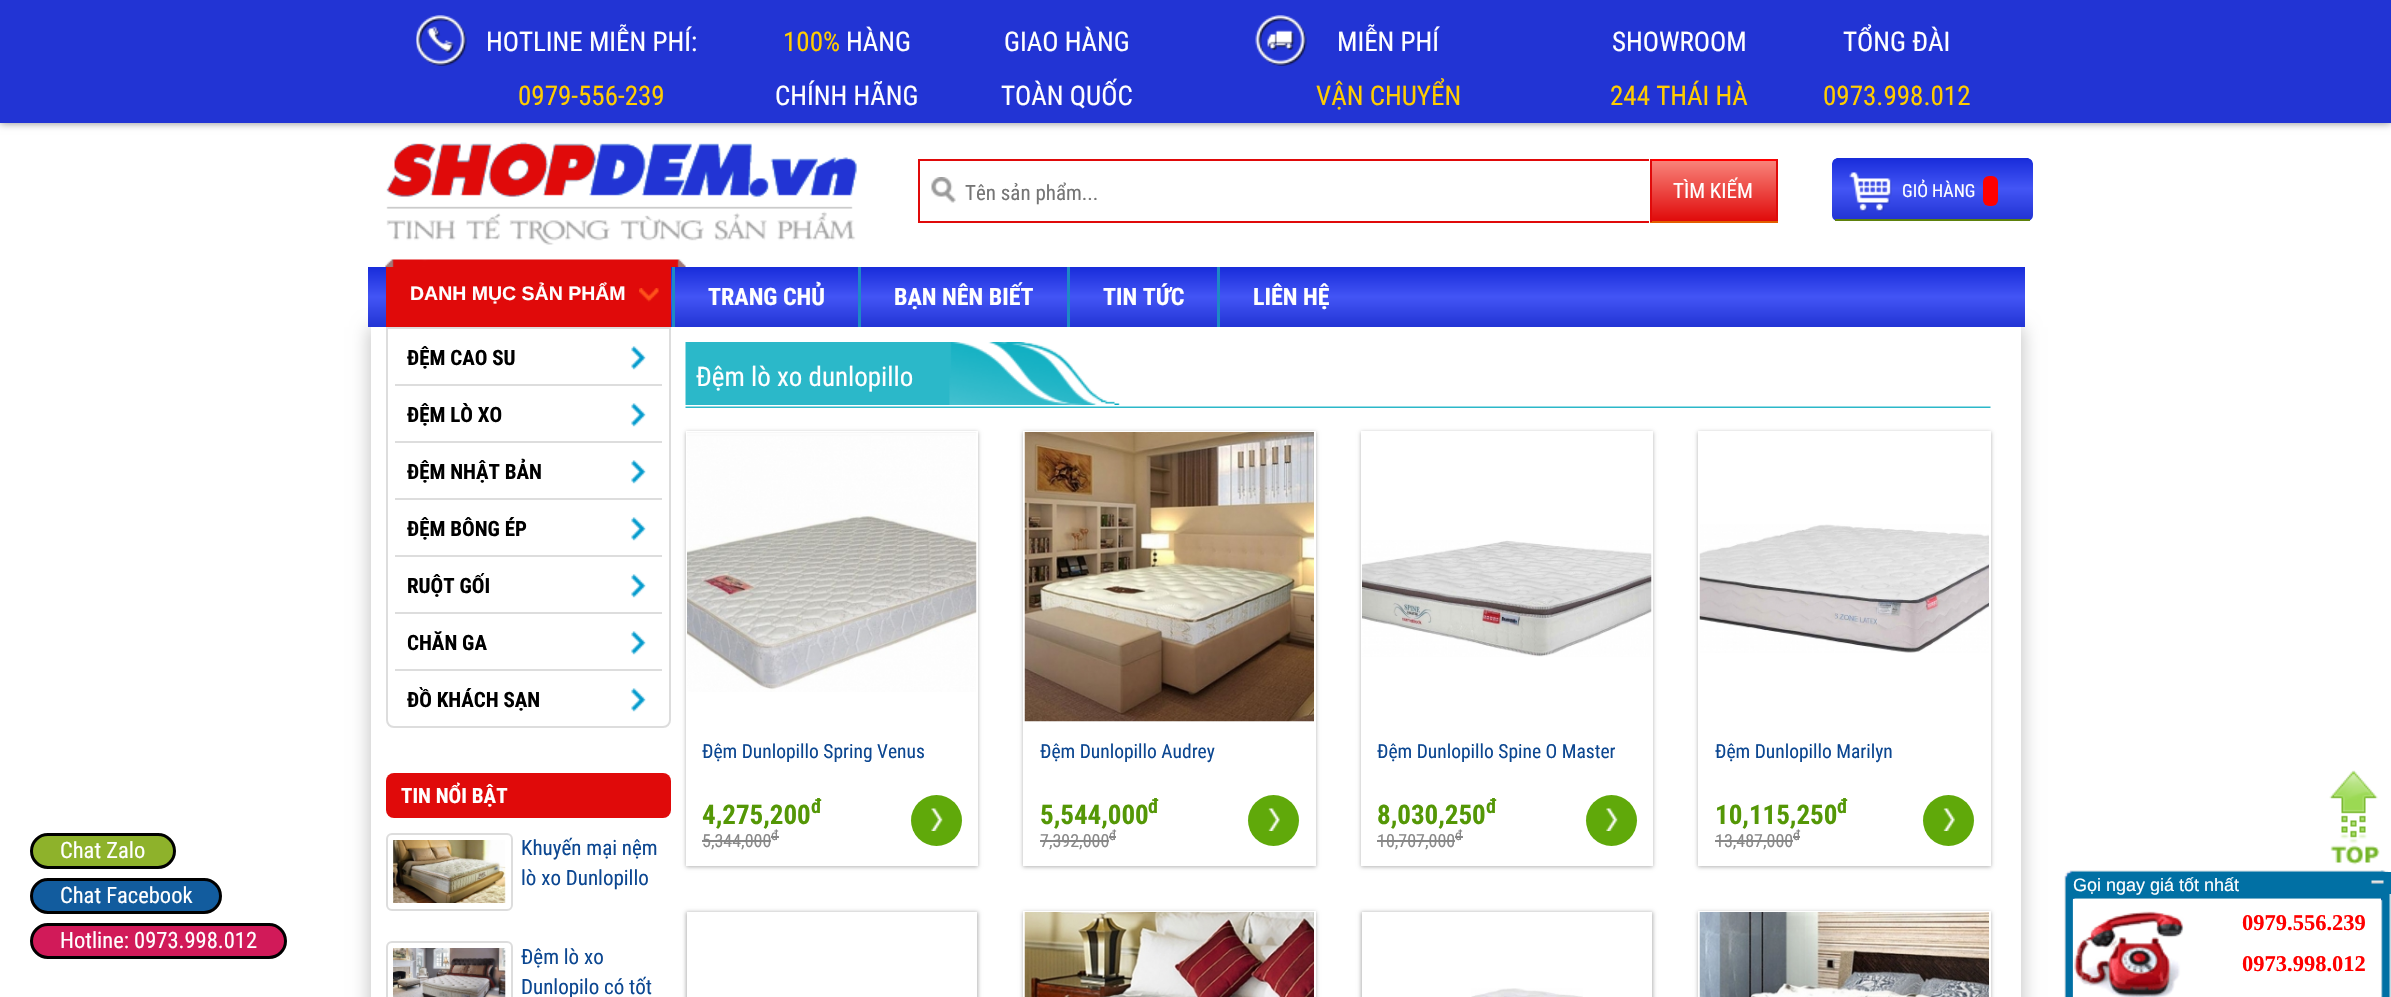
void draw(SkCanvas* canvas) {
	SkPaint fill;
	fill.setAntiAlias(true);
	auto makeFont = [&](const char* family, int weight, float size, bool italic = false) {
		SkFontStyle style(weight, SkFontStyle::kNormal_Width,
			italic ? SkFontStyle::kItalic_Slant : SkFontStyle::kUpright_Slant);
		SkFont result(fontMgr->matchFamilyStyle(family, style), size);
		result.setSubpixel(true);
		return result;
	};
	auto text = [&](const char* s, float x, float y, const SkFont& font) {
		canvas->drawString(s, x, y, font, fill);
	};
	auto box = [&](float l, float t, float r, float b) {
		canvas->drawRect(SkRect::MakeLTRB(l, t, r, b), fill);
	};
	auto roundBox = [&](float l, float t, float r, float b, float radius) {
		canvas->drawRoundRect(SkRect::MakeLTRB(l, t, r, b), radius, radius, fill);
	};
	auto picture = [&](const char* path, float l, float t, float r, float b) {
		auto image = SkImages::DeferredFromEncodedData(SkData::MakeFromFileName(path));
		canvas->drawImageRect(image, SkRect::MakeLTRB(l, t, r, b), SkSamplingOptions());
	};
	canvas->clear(0xFFFFFFFF);
	fill.setColor(0xFF888888);
	fill.setMaskFilter(SkMaskFilter::MakeBlur(kNormal_SkBlurStyle, 4));
	canvas->drawRect(SkRect::MakeLTRB(0, 0, 2391, 123), fill);
	fill.setMaskFilter(nullptr);
	fill.setColor(0xFF2234D4);
	box(0, 0, 2391, 123);
	picture("image0.png", 416, 15, 467, 66);
	picture("image1.png", 1255, 15, 1307, 66);
	picture("image2.png", 385, 259, 686, 267);
	picture("image3.png", 386, 142, 857, 245);
	picture("image4.png", 931, 177, 956, 203);
	fill.setColor(0xFFE00A0A);
	box(918, 159, 1649, 161);
	box(918, 221, 1649, 223);
	box(918, 159, 920, 222);
	{
		const SkColor colors[] = {0xFFF8837A, 0xFFE00A0A};
		const float stops[] = {0, 1};
		const SkPoint ends[] = {{1714, 161}, {1714, 221}};
		fill.setShader(SkGradientShader::MakeLinear(ends, colors, stops, 2, SkTileMode::kClamp));
		fill.setAlpha(255);
	}
	box(1652, 161, 1776, 221);
	fill.setShader(nullptr);
	fill.setColor(0xFFFF0000);
	box(1650, 159, 1778, 161);
	fill.setColor(0xFFE00A0A);
	box(1776, 159, 1778, 222);
	fill.setColor(0xFFE25E00);
	box(1650, 221, 1778, 223);
	fill.setColor(0xFFE00A0A);
	box(1650, 159, 1652, 222);
	canvas->save();
	canvas->clipPath(SkPathBuilder().moveTo(1838, 158).lineTo(2027, 158).cubicTo(2030.5f, 158, 2033, 160.5f, 2033, 164).lineTo(2033, 215).cubicTo(2033, 218.5f, 2030.5f, 221, 2027, 221).lineTo(1838, 221).cubicTo(1834.5f, 221, 1832, 218.5f, 1832, 215).lineTo(1832, 164).cubicTo(1832, 160.5f, 1834.5f, 158, 1838, 158).close().detach(), true);
	{
		const SkColor colors[] = {0xFF182CDA, 0xFF4355F5, 0xFF2234D4};
		const float stops[] = {0, 0.5f, 1};
		const SkPoint ends[] = {{1932, 158}, {1932, 219}};
		fill.setShader(SkGradientShader::MakeLinear(ends, colors, stops, 3, SkTileMode::kClamp));
		fill.setAlpha(255);
	}
	canvas->drawPath(SkPathBuilder().moveTo(1838, 158).lineTo(2027, 158).cubicTo(2030.5f, 158, 2033, 160.5f, 2033, 164).lineTo(2033, 219).lineTo(1832, 219).lineTo(1832, 164).cubicTo(1832, 160.5f, 1834.5f, 158, 1838, 158).close().detach(), fill);
	{
		const SkColor colors[] = {0xFF182CDA, 0xFF4355F5, 0xFF2234D4};
		const float stops[] = {0, 0.5f, 1};
		const SkPoint ends[] = {{1932, 219}, {1932, 281}};
		fill.setShader(SkGradientShader::MakeLinear(ends, colors, stops, 3, SkTileMode::kClamp));
		fill.setAlpha(255);
	}
	box(1832, 219, 2033, 221);
	canvas->restore();
	fill.setShader(nullptr);
	fill.setColor(0xFF5E810C);
	box(1835, 219, 2030, 221);
	picture("image5.png", 1849, 172, 1892, 212);
	fill.setColor(0xFFFF0000);
	roundBox(1983, 176, 1998, 206, 6);
	canvas->save();
	canvas->clipPath(SkPathBuilder(SkPathFillType::kEvenOdd).moveTo(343, 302).lineTo(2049, 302).lineTo(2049, 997).lineTo(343, 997).close().moveTo(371, 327).lineTo(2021, 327).lineTo(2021, 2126).lineTo(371, 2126).close().detach(), true);
	fill.setColor(0xFFCCCCCC);
	fill.setMaskFilter(SkMaskFilter::MakeBlur(kNormal_SkBlurStyle, 8));
	canvas->drawRect(SkRect::MakeLTRB(368, 327, 2024, 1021), fill);
	fill.setMaskFilter(nullptr);
	canvas->restore();
	{
		const SkColor colors[] = {0xFF182CDA, 0xFF4355F5, 0xFF2234D4};
		const float stops[] = {0, 0.5f, 1};
		const SkPoint ends[] = {{1196, 267}, {1196, 327}};
		fill.setShader(SkGradientShader::MakeLinear(ends, colors, stops, 3, SkTileMode::kClamp));
		fill.setAlpha(255);
	}
	box(368, 267, 2025, 327);
	fill.setShader(nullptr);
	fill.setColor(0xFF1D89C5);
	box(672, 267, 675, 327);
	box(858, 267, 861, 327);
	box(1067, 267, 1070, 327);
	box(1217, 267, 1220, 327);
	fill.setColor(0xFFE00A0A);
	box(386, 267, 671, 327);
	picture("image6.png", 639, 288, 659, 302);
	fill.setStyle(SkPaint::kStroke_Style);
	fill.setStrokeWidth(2);
	fill.setColor(0xFFDDDDDD);
	canvas->drawPath(SkPathBuilder().moveTo(387, 328).lineTo(670, 328).lineTo(670, 720).cubicTo(670, 724, 667, 727, 663, 727).lineTo(394, 727).cubicTo(390, 727, 387, 724, 387, 720).close().detach(), fill);
	fill.setStyle(SkPaint::kFill_Style);
	box(395, 384, 662, 386);
	picture("image7.png", 631, 346, 646, 370);
	box(395, 441, 662, 443);
	picture("image7.png", 631, 403, 646, 427);
	box(395, 498, 662, 500);
	picture("image7.png", 631, 460, 646, 484);
	box(395, 555, 662, 557);
	picture("image7.png", 631, 517, 646, 541);
	box(395, 612, 662, 614);
	picture("image7.png", 631, 574, 646, 598);
	box(395, 669, 662, 671);
	picture("image7.png", 631, 631, 646, 655);
	picture("image7.png", 631, 688, 646, 712);
	fill.setColor(0xFFE00A0A);
	roundBox(386, 773, 671, 818, 8);
	fill.setStyle(SkPaint::kStroke_Style);
	fill.setColor(0xFFDDDDDD);
	canvas->drawRoundRect(SkRect::MakeLTRB(387, 834, 512, 910), 5, 5, fill);
	picture("image8.png", 393, 840, 506, 903);
	canvas->drawRoundRect(SkRect::MakeLTRB(387, 942, 512, 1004), 5, 5, fill);
	picture("image9.png", 393, 948, 506, 997);
	picture("image10.png", 685, 406, 1991, 408);
	picture("image11.png", 685, 342, 1120, 405);
	fill.setStyle(SkPaint::kFill_Style);
	fill.setColor(0x4D000000);
	fill.setMaskFilter(SkMaskFilter::MakeBlur(kNormal_SkBlurStyle, 2));
	canvas->drawRect(SkRect::MakeLTRB(686, 432, 978, 867), fill);
	fill.setMaskFilter(nullptr);
	fill.setColor(0xFFFFFFFF);
	box(686, 431, 978, 866);
	picture("image12.png", 687, 432, 977, 692);
	fill.setColor(0xFF888888);
	box(702, 840, 771, 842);
	box(771, 836, 779, 838);
	fill.setColor(0xFF60A90A);
	canvas->drawCircle(936.5f, 820.5f, 25.5f, fill);
	picture("image13.png", 931, 808, 943, 831);
	fill.setColor(0x4D000000);
	fill.setMaskFilter(SkMaskFilter::MakeBlur(kNormal_SkBlurStyle, 2));
	canvas->drawRect(SkRect::MakeLTRB(1023, 432, 1316, 867), fill);
	fill.setMaskFilter(nullptr);
	fill.setColor(0xFFFFFFFF);
	box(1023, 431, 1316, 866);
	picture("image14.png", 1024, 432, 1314, 722);
	fill.setColor(0xFF888888);
	box(1040, 840, 1109, 842);
	box(1109, 836, 1116, 838);
	fill.setColor(0xFF60A90A);
	canvas->drawCircle(1273.5f, 820.5f, 25.5f, fill);
	picture("image15.png", 1268, 808, 1280, 831);
	fill.setColor(0x4D000000);
	fill.setMaskFilter(SkMaskFilter::MakeBlur(kNormal_SkBlurStyle, 2));
	canvas->drawRect(SkRect::MakeLTRB(1361, 432, 1653, 867), fill);
	fill.setMaskFilter(nullptr);
	fill.setColor(0xFFFFFFFF);
	box(1361, 431, 1653, 866);
	picture("image16.png", 1362, 540, 1652, 657);
	fill.setColor(0xFF888888);
	box(1377, 840, 1455, 842);
	box(1455, 836, 1463, 838);
	fill.setColor(0xFF60A90A);
	canvas->drawCircle(1611.5f, 820.5f, 25.5f, fill);
	picture("image13.png", 1606, 808, 1618, 831);
	fill.setColor(0x4D000000);
	fill.setMaskFilter(SkMaskFilter::MakeBlur(kNormal_SkBlurStyle, 2));
	canvas->drawRect(SkRect::MakeLTRB(1698, 432, 1991, 867), fill);
	fill.setMaskFilter(nullptr);
	fill.setColor(0xFFFFFFFF);
	box(1698, 431, 1991, 866);
	picture("image17.png", 1699, 524, 1989, 653);
	fill.setColor(0xFF888888);
	box(1715, 840, 1793, 842);
	box(1793, 836, 1800, 838);
	fill.setColor(0xFF60A90A);
	canvas->drawCircle(1948.5f, 820.5f, 25.5f, fill);
	picture("image18.png", 1943, 808, 1955, 831);
	fill.setColor(0x4D000000);
	fill.setMaskFilter(SkMaskFilter::MakeBlur(kNormal_SkBlurStyle, 2));
	canvas->drawRect(SkRect::MakeLTRB(686, 912, 978, 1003), fill);
	fill.setMaskFilter(nullptr);
	fill.setColor(0xFFFFFFFF);
	box(687, 912, 977, 997);
	fill.setColor(0x4D000000);
	fill.setMaskFilter(SkMaskFilter::MakeBlur(kNormal_SkBlurStyle, 2));
	canvas->drawRect(SkRect::MakeLTRB(1023, 912, 1316, 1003), fill);
	fill.setMaskFilter(nullptr);
	fill.setColor(0xFFFFFFFF);
	box(1023, 911, 1316, 997);
	picture("image19.png", 1024, 912, 1314, 997);
	fill.setColor(0x4D000000);
	fill.setMaskFilter(SkMaskFilter::MakeBlur(kNormal_SkBlurStyle, 2));
	canvas->drawRect(SkRect::MakeLTRB(1361, 912, 1653, 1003), fill);
	fill.setMaskFilter(nullptr);
	fill.setColor(0xFFFFFFFF);
	box(1362, 912, 1652, 997);
	picture("image20.png", 1471, 988, 1583, 997);
	fill.setColor(0x4D000000);
	fill.setMaskFilter(SkMaskFilter::MakeBlur(kNormal_SkBlurStyle, 2));
	canvas->drawRect(SkRect::MakeLTRB(1698, 912, 1991, 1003), fill);
	fill.setMaskFilter(nullptr);
	fill.setColor(0xFFFFFFFF);
	box(1698, 911, 1991, 997);
	picture("image21.png", 1699, 912, 1989, 997);
	picture("image22.png", 2329, 770, 2380, 865);
	fill.setColor(0xFF8EB22B);
	canvas->drawRoundRect(SkRect::MakeLTRB(31.5f, 834.5f, 174.5f, 867.5f), 16.5f, 16.5f, fill);
	fill.setStyle(SkPaint::kStroke_Style);
	fill.setStrokeWidth(3);
	fill.setColor(0xFF000000);
	canvas->drawRoundRect(SkRect::MakeLTRB(31.5f, 834.5f, 174.5f, 867.5f), 16.5f, 16.5f, fill);
	fill.setStyle(SkPaint::kFill_Style);
	fill.setColor(0xFF125C9E);
	canvas->drawRoundRect(SkRect::MakeLTRB(31.5f, 879.5f, 220.5f, 912.5f), 16.5f, 16.5f, fill);
	fill.setStyle(SkPaint::kStroke_Style);
	fill.setColor(0xFF000000);
	canvas->drawRoundRect(SkRect::MakeLTRB(31.5f, 879.5f, 220.5f, 912.5f), 16.5f, 16.5f, fill);
	fill.setStyle(SkPaint::kFill_Style);
	fill.setColor(0xFFD11A59);
	canvas->drawRoundRect(SkRect::MakeLTRB(31.5f, 924.5f, 285.5f, 957.5f), 16.5f, 16.5f, fill);
	fill.setStyle(SkPaint::kStroke_Style);
	fill.setColor(0xFF000000);
	canvas->drawRoundRect(SkRect::MakeLTRB(31.5f, 924.5f, 285.5f, 957.5f), 16.5f, 16.5f, fill);
	picture("image23.png", 2381, 870, 2391, 997);
	picture("image24.png", 2064, 870, 2381, 997);
	picture("image25.png", 2371, 872, 2391, 894);
	fill.setStyle(SkPaint::kFill_Style);
	fill.setColor(0xFFFFFFFF);
	box(2073, 899, 2381, 997);
	picture("image26.png", 2074, 911, 2184, 997);
	auto font1 = makeFont("Roboto Condensed", 400, 27);
	text("HOTLINE MIỄN PHÍ:", 486, 51, font1);
	fill.setColor(0xFFFFCC00);
	text("0979-556-239", 518, 105, font1);
	text("100%", 783, 51, font1);
	fill.setColor(0xFFFFFFFF);
	text("HÀNG", 846, 51, font1);
	text("CHÍNH HÃNG", 775, 105, font1);
	text("GIAO HÀNG", 1004, 51, font1);
	text("TOÀN QUỐC", 1001, 105, font1);
	text("MIỄN PHÍ", 1337, 51, font1);
	fill.setColor(0xFFFFCC00);
	text("VẬN CHUYỂN", 1316, 105, font1);
	fill.setColor(0xFFFFFFFF);
	text("SHOWROOM", 1612, 51, font1);
	fill.setColor(0xFFFFCC00);
	text("244 THÁI HÀ", 1610, 105, font1);
	fill.setColor(0xFFFFFFFF);
	text("TỔNG ĐÀI", 1843, 51, font1);
	fill.setColor(0xFFFFCC00);
	text("0973.998.012", 1823, 105, font1);
	auto font2 = makeFont("Roboto Condensed", 400, 21);
	fill.setColor(0xFF757575);
	text("Tên sản phẩm...", 965, 200, font2);
	fill.setColor(0xFFFFFFFF);
	text("TÌM KIẾM", 1673, 198, font2);
	auto font3 = makeFont("Roboto Condensed", 400, 18);
	text("GIỎ HÀNG", 1902, 197, font3);
	auto font4 = makeFont("Roboto Condensed", 700, 24);
	text("TRANG CHỦ", 708, 305, font4);
	text("BẠN NÊN BIẾT", 894, 305, font4);
	text("TIN TỨC", 1103, 305, font4);
	text("LIÊN HỆ", 1253, 305, font4);
	auto font5 = makeFont("Liberation Sans", 700, 19.5f);
	text("DANH MỤC SẢN PHẨM", 410, 300, font5);
	auto font6 = makeFont("Roboto Condensed", 700, 21);
	fill.setColor(0xFF000000);
	text("ĐỆM CAO SU", 407, 365, font6);
	text("ĐỆM LÒ XO", 407, 422, font6);
	text("ĐỆM NHẬT BẢN", 407, 479, font6);
	text("ĐỆM BÔNG ÉP", 407, 536, font6);
	text("RUỘT GỐI", 407, 593, font6);
	text("CHĂN GA", 407, 650, font6);
	text("ĐỒ KHÁCH SẠN", 407, 707, font6);
	fill.setColor(0xFFFFFFFF);
	text("TIN NỔI BẬT", 401, 803, font6);
	fill.setColor(0xFF0C4791);
	text("Khuyến mại nệm", 521, 855, font2);
	text("lò xo Dunlopillo", 521, 885, font2);
	text("Đệm lò xo", 521, 964, font2);
	text("Dunlopilo có tốt", 521, 994, font2);
	fill.setColor(0xFFFFFFFF);
	text("Đệm lò xo dunlopillo", 696, 386, font1);
	auto font7 = makeFont("Roboto Condensed", 400, 19.5f);
	fill.setColor(0xFF0C4791);
	text("Đệm Dunlopillo Spring Venus", 702, 758, font7);
	auto font8 = makeFont("Roboto Condensed", 700, 27);
	fill.setColor(0xFF549706);
	text("4,275,200", 702, 824, font8);
	auto font9 = makeFont("Roboto Condensed", 700, 20);
	text("đ", 811, 813, font9);
	fill.setColor(0xFF888888);
	text("5,344,000", 702, 847, font3);
	auto font10 = makeFont("Roboto Condensed", 400, 14);
	text("đ", 771, 840, font10);
	fill.setColor(0xFF0C4791);
	text("Đệm Dunlopillo Audrey", 1040, 758, font7);
	fill.setColor(0xFF549706);
	text("5,544,000", 1040, 824, font8);
	text("đ", 1148, 813, font9);
	fill.setColor(0xFF888888);
	text("7,392,000", 1040, 847, font3);
	text("đ", 1109, 840, font10);
	fill.setColor(0xFF0C4791);
	text("Đệm Dunlopillo Spine O Master", 1377, 758, font7);
	fill.setColor(0xFF549706);
	text("8,030,250", 1377, 824, font8);
	text("đ", 1486, 813, font9);
	fill.setColor(0xFF888888);
	text("10,707,000", 1377, 847, font3);
	text("đ", 1455, 840, font10);
	fill.setColor(0xFF0C4791);
	text("Đệm Dunlopillo Marilyn", 1715, 758, font7);
	fill.setColor(0xFF549706);
	text("10,115,250", 1715, 824, font8);
	text("đ", 1837, 813, font9);
	fill.setColor(0xFF888888);
	text("13,487,000", 1715, 847, font3);
	text("đ", 1793, 840, font10);
	auto font11 = makeFont("Roboto Condensed", 400, 22.5f);
	fill.setColor(0xFFFFFFFF);
	text("Chat Zalo", 60, 858, font11);
	text("Chat Facebook", 60, 903, font11);
	text("Hotline: 0973.998.012", 60, 948, font11);
	auto font12 = makeFont("Liberation Sans", 400, 18);
	text("Gọi ngay giá tốt nhất", 2073, 891, font12);
	auto font13 = makeFont("Liberation Serif", 700, 22.5f);
	fill.setColor(0xFFFF0000);
	text("0979.556.239", 2242, 930, font13);
	text("0973.998.012", 2242, 971, font13);
}
